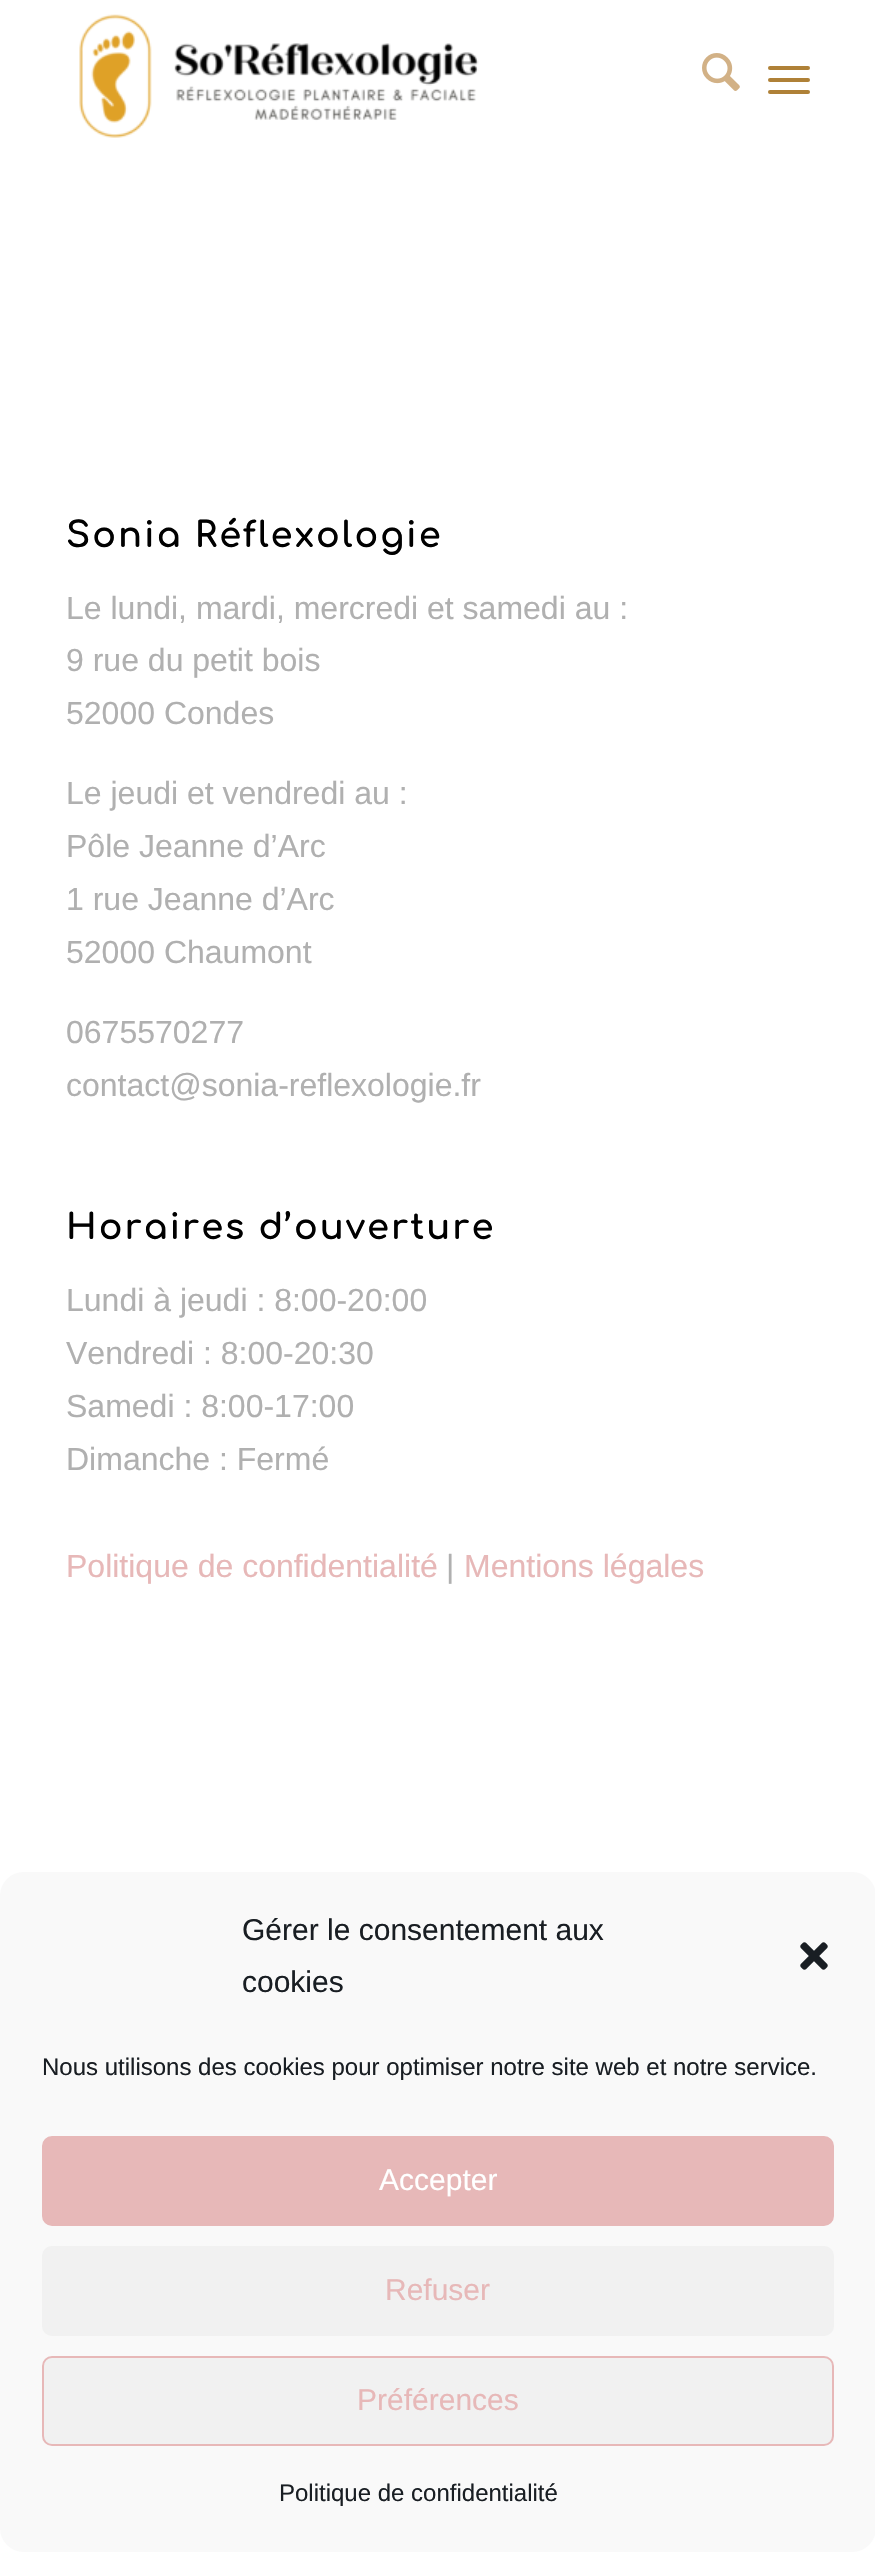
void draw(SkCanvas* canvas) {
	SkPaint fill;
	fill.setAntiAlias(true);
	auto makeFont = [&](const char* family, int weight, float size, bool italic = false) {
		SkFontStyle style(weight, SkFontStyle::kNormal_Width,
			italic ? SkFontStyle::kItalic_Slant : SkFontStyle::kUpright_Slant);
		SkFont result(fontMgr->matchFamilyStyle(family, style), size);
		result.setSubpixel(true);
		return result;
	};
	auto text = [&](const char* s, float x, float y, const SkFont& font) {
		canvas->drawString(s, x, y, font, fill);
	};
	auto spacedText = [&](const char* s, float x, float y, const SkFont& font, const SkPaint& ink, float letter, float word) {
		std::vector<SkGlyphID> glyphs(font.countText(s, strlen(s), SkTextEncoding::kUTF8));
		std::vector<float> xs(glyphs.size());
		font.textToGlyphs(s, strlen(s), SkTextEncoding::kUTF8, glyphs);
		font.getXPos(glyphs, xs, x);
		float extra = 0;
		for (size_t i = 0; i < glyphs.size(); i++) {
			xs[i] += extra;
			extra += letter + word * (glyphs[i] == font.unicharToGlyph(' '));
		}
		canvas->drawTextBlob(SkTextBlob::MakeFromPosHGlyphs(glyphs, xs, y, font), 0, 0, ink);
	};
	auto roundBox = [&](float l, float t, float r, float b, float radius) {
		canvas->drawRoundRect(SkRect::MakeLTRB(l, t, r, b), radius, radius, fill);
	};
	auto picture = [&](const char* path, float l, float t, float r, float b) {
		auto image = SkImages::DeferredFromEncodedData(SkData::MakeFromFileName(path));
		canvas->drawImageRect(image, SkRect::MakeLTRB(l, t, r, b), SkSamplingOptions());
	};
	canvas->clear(0xFFFFFFFF);
	picture("image0.png", 79, 14, 479, 138);
	picture("image1.png", 702, 53, 740, 91);
	fill.setColor(0xFFAF8137);
	roundBox(768, 78, 810, 82, 2);
	roundBox(768, 66, 810, 70, 2);
	roundBox(768, 90, 810, 94, 2);
	fill.setColor(0xFFF9F9F9);
	roundBox(0, 1872, 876, 2552, 24);
	picture("image2.png", 800, 1942, 828, 1970);
	fill.setColor(0xFFE7B8B8);
	canvas->drawRoundRect(SkRect::MakeLTRB(43, 2137, 833, 2225), 9, 9, fill);
	fill.setStyle(SkPaint::kStroke_Style);
	fill.setStrokeWidth(2);
	canvas->drawRoundRect(SkRect::MakeLTRB(43, 2137, 833, 2225), 9, 9, fill);
	fill.setStyle(SkPaint::kFill_Style);
	fill.setColor(0xFFF1F1F1);
	roundBox(42, 2246, 834, 2336, 10);
	canvas->drawRoundRect(SkRect::MakeLTRB(43, 2357, 833, 2445), 9, 9, fill);
	fill.setStyle(SkPaint::kStroke_Style);
	fill.setColor(0xFFE7B8B8);
	canvas->drawRoundRect(SkRect::MakeLTRB(43, 2357, 833, 2445), 9, 9, fill);
	auto font1 = makeFont("Comfortaa", 700, 35.25f);
	fill.setStyle(SkPaint::kFill_Style);
	fill.setColor(0xFF000000);
	spacedText("Sonia Réflexologie", 66, 547, font1, fill, 2, 0);
	auto font2 = makeFont("Liberation Sans", 400, 32);
	fill.setColor(0xFFB0B0B0);
	text("Le lundi, mardi, mercredi et samedi au :", 66, 619, font2);
	text("9 rue du petit bois", 66, 671, font2);
	text("52000 Condes", 66, 724, font2);
	text("Le jeudi et vendredi au :", 66, 804, font2);
	text("Pôle Jeanne d’Arc", 66, 857, font2);
	text("1 rue Jeanne d’Arc", 66, 910, font2);
	text("52000 Chaumont", 66, 963, font2);
	text("0675570277", 66, 1043, font2);
	text("contact@sonia-reflexologie.fr", 66, 1096, font2);
	fill.setColor(0xFF000000);
	spacedText("Horaires d’ouverture", 66, 1239, font1, fill, 2, 0);
	fill.setColor(0xFFB0B0B0);
	text("Lundi à jeudi : 8:00-20:00", 66, 1311, font2);
	text("Vendredi : 8:00-20:30", 66, 1364, font2);
	text("Samedi : 8:00-17:00", 66, 1417, font2);
	text("Dimanche : Fermé", 66, 1470, font2);
	fill.setColor(0xFFE7B8B8);
	text("Politique de confidentialité", 66, 1577, font2);
	fill.setColor(0xFFB0B0B0);
	text("|", 446, 1577, font2);
	fill.setColor(0xFFE7B8B8);
	text("Mentions légales", 464, 1577, font2);
	auto font3 = makeFont("Liberation Sans", 400, 30);
	fill.setColor(0xFF191E23);
	text("Gérer le consentement aux", 242, 1940, font3);
	text("cookies", 242, 1992, font3);
	auto font4 = makeFont("Liberation Sans", 400, 24);
	text("Nous utilisons des cookies pour optimiser notre site web et notre service.", 42, 2075, font4);
	fill.setColor(0xFFFFFFFF);
	text("Accepter", 379, 2190, font3);
	fill.setColor(0xFFE7B8B8);
	text("Refuser", 385, 2300, font3);
	text("Préférences", 357, 2410, font3);
	fill.setColor(0xFF191E23);
	text("Politique de confidentialité", 279, 2501, font4);
}
